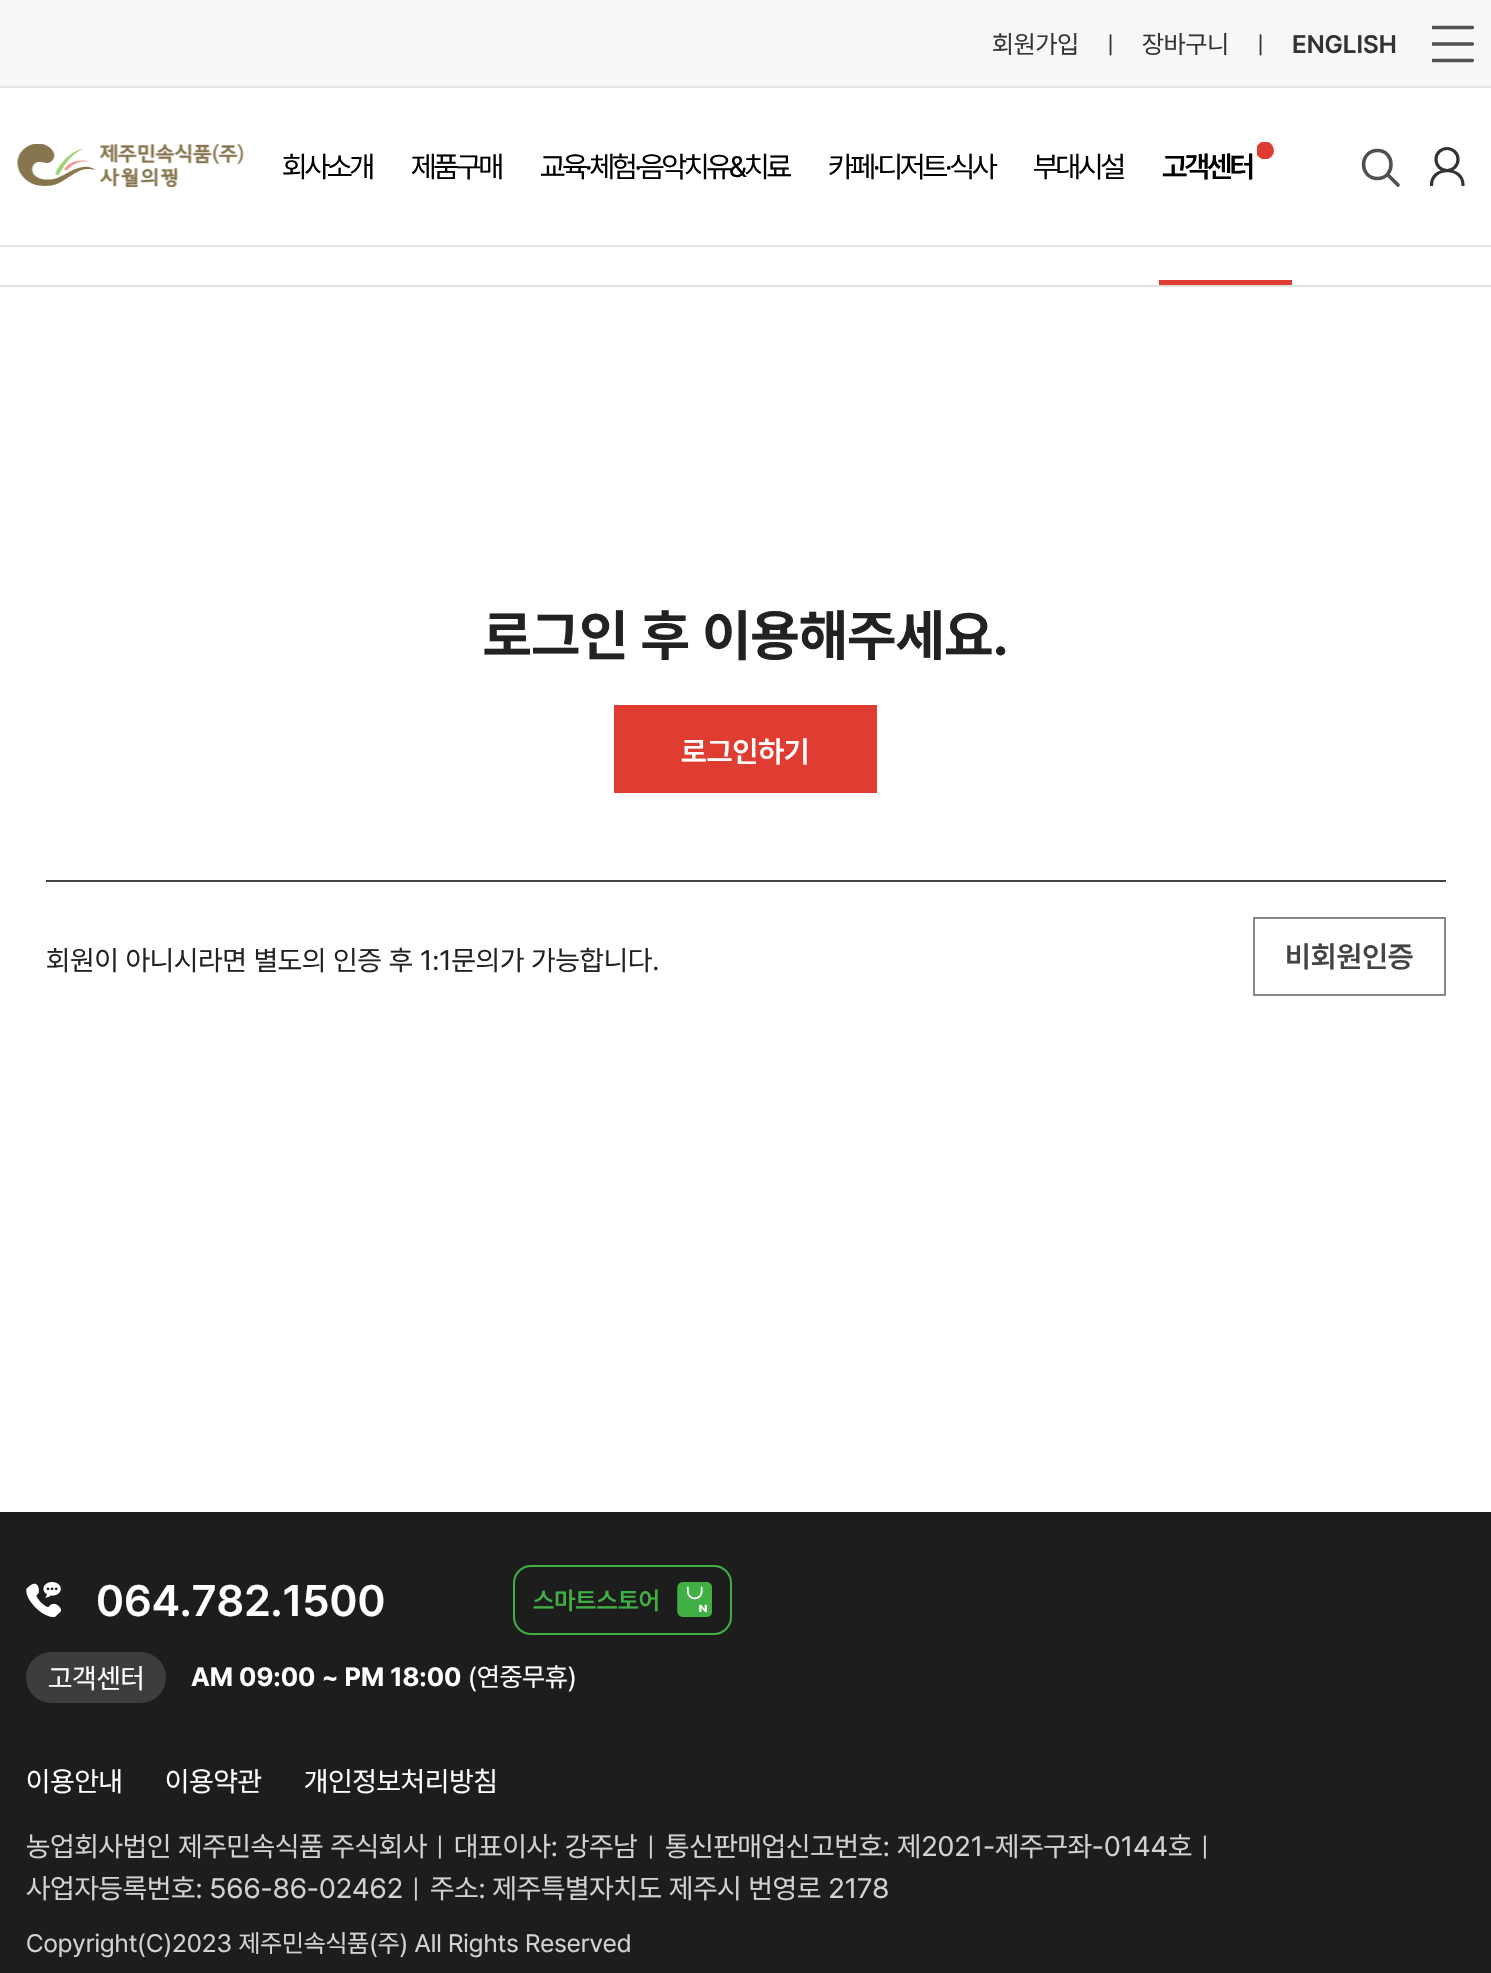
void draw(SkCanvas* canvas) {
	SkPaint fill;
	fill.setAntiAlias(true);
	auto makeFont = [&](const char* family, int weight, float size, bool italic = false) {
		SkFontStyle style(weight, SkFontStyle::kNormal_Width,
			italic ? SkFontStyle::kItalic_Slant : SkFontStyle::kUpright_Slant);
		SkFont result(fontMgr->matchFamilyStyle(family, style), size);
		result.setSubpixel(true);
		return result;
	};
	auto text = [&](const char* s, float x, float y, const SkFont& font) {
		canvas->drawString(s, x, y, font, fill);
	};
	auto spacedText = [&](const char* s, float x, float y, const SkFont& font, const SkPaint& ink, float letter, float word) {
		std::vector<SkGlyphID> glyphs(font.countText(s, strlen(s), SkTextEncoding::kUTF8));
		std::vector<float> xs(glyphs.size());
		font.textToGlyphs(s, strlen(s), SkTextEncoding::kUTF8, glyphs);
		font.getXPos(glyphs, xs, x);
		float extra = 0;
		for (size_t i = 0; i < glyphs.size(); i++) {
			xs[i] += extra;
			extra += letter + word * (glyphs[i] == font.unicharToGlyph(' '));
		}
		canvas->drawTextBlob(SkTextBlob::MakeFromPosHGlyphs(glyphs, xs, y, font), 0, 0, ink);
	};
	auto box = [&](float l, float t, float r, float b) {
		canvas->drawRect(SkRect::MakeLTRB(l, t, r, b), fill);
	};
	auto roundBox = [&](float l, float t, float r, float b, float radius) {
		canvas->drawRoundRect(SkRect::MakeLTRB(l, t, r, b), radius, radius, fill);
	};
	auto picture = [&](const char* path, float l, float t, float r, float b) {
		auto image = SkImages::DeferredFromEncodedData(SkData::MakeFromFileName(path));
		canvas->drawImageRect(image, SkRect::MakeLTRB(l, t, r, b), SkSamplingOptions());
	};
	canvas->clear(0xFFFFFFFF);
	fill.setColor(0xFFE5E5E5);
	box(0, 245, 1491, 247);
	fill.setColor(0xFFF7F7F7);
	box(0, 0, 1491, 86);
	fill.setColor(0xFFE5E5E5);
	box(0, 86, 1491, 88);
	canvas->save();
	canvas->clipRect(SkRect::MakeLTRB(1432, 19, 1474, 68));
	fill.setStyle(SkPaint::kStroke_Style);
	fill.setStrokeWidth(3.3f);
	fill.setStrokeCap(SkPaint::kRound_Cap);
	fill.setColor(0xFF505050);
	canvas->drawPath(SkPathBuilder().moveTo(1432.5f, 27.5f).lineTo(1472.5f, 27.5f).moveTo(1432.5f, 44).lineTo(1472.5f, 44).moveTo(1432.5f, 60.5f).lineTo(1472.5f, 60.5f).detach(), fill);
	canvas->restore();
	picture("image0.png", 17, 144, 244, 187);
	canvas->save();
	canvas->clipRect(SkRect::MakeLTRB(1257, 142, 1274, 159));
	fill.setStyle(SkPaint::kFill_Style);
	fill.setColor(0xFFDF3D31);
	canvas->drawCircle(1265, 150.5f, 9, fill);
	canvas->restore();
	fill.setStyle(SkPaint::kStroke_Style);
	fill.setStrokeWidth(3.6f);
	fill.setStrokeJoin(SkPaint::kRound_Join);
	fill.setColor(0xFF505050);
	canvas->drawPath(SkPathBuilder().moveTo(1377.5f, 178.5f).cubicTo(1395.5f, 178.5f, 1395.5f, 150.5f, 1377.5f, 150.5f).cubicTo(1359, 150.5f, 1359, 178.5f, 1377.5f, 178.5f).close().moveTo(1398, 185).lineTo(1387.5f, 174.5f).detach(), fill);
	canvas->save();
	canvas->clipRect(SkRect::MakeLTRB(1430, 147, 1465, 186));
	fill.setStrokeWidth(3.2f);
	fill.setColor(0xFF333333);
	canvas->drawPath(SkPathBuilder().moveTo(1463, 185).cubicTo(1463, 166, 1431.5f, 166, 1431.5f, 185).detach(), fill);
	canvas->restore();
	fill.setStrokeCap(SkPaint::kButt_Cap);
	fill.setStrokeJoin(SkPaint::kMiter_Join);
	canvas->drawCircle(1447, 159.5f, 11, fill);
	fill.setStyle(SkPaint::kFill_Style);
	fill.setColor(0xFFE0E0E0);
	box(0, 285, 1491, 287);
	fill.setColor(0xFFDF3D31);
	box(1159, 280, 1292, 285);
	box(614, 705, 877, 793);
	fill.setColor(0xFF444444);
	box(46, 880, 1446, 882);
	fill.setStyle(SkPaint::kStroke_Style);
	fill.setStrokeWidth(2);
	fill.setColor(0xFF888888);
	canvas->drawRect(SkRect::MakeLTRB(1254, 918, 1445, 995), fill);
	fill.setStyle(SkPaint::kFill_Style);
	fill.setColor(0xFF1D1D1D);
	box(0, 1512, 1491, 1973);
	picture("image1.png", 26, 1582, 61, 1617);
	picture("image2.png", 677, 1582, 712, 1617);
	fill.setStyle(SkPaint::kStroke_Style);
	fill.setColor(0xFF40B044);
	canvas->drawRoundRect(SkRect::MakeLTRB(514, 1566, 731, 1634), 17, 17, fill);
	fill.setStyle(SkPaint::kFill_Style);
	fill.setColor(0xFF3D3D3D);
	roundBox(26, 1652, 166, 1703, 25.5f);
	auto font1 = makeFont("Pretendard", 400, 25.2f);
	fill.setColor(0xFF333333);
	text("회원가입", 992, 53, font1);
	auto font2 = makeFont("Pretendard", 400, 23);
	text("|", 1107, 53, font2);
	text("장바구니", 1142, 53, font1);
	text("|", 1257, 53, font2);
	auto font3 = makeFont("Pretendard", 600, 25.2f);
	text("ENGLISH", 1292, 53, font3);
	auto font4 = makeFont("Pretendard", 400, 29.5f);
	fill.setColor(0xFF000000);
	spacedText("회사소개", 282, 177, font4, fill, -3, 0);
	spacedText("제품구매", 411, 177, font4, fill, -3, 0);
	spacedText("교육·체험·음악치유&치료", 540, 177, font4, fill, -3, 0);
	spacedText("카페·디저트·식사", 828, 177, font4, fill, -3, 0);
	spacedText("부대시설", 1033, 177, font4, fill, -3, 0);
	auto font5 = makeFont("Pretendard", 600, 29.5f);
	spacedText("고객센터", 1162, 177, font5, fill, -3, 0);
	auto font6 = makeFont("Pretendard", 700, 56);
	fill.setColor(0xFF222222);
	text("로그인 후 이용해주세요.", 483, 655, font6);
	auto font7 = makeFont("Pretendard", 600, 29.75f);
	fill.setColor(0xFFFFFFFF);
	text("로그인하기", 681, 762, font7);
	auto font8 = makeFont("Pretendard", 400, 28);
	fill.setColor(0xFF222222);
	text("회원이 아니시라면 별도의 인증 후 1:1문의가 가능합니다.", 46, 970, font8);
	fill.setColor(0xFF444444);
	text("비회원인증", 1285, 967, font7);
	auto font9 = makeFont("Pretendard", 600, 43.75f);
	fill.setColor(0xFFFFFFFF);
	text("064.782.1500", 96, 1616, font9);
	auto font10 = makeFont("Pretendard", 600, 24.5f);
	fill.setColor(0xFF40B044);
	text("스마트스토어", 533, 1609, font10);
	fill.setColor(0xFFFFFFFF);
	text("고객센터", 48, 1688, font8);
	auto font11 = makeFont("Pretendard", 700, 26.25f);
	text("AM 09:00 ~ PM 18:00", 191, 1686, font11);
	auto font12 = makeFont("Pretendard", 400, 26.25f);
	text("(연중무휴)", 468, 1686, font12);
	text("이용안내", 26, 1791, font8);
	text("이용약관", 165, 1791, font8);
	text("개인정보처리방침", 304, 1791, font8);
	fill.setColor(0xFFD2D2D2);
	text("농업회사법인 제주민속식품 주식회사", 26, 1856, font8);
	text("|", 436, 1856, font1);
	text("대표이사: 강주남", 454, 1856, font8);
	text("|", 647, 1856, font1);
	text("통신판매업신고번호: 제2021-제주구좌-0144호", 665, 1856, font8);
	text("|", 1201, 1856, font1);
	text("사업자등록번호: 566-86-02462", 26, 1898, font8);
	text("|", 412, 1898, font1);
	text("주소: 제주특별자치도 제주시 번영로 2178", 430, 1898, font8);
	text("Copyright(C)2023 제주민속식품(주) All Rights Reserved", 26, 1952, font1);
}
